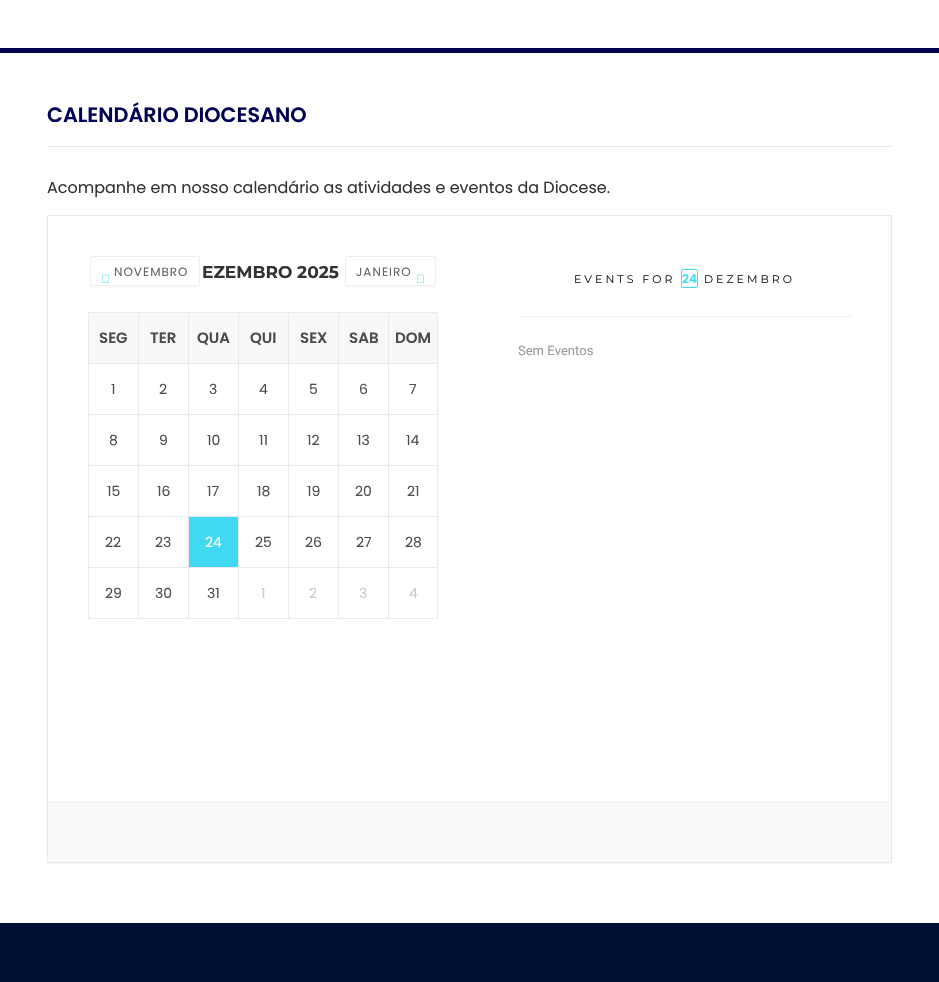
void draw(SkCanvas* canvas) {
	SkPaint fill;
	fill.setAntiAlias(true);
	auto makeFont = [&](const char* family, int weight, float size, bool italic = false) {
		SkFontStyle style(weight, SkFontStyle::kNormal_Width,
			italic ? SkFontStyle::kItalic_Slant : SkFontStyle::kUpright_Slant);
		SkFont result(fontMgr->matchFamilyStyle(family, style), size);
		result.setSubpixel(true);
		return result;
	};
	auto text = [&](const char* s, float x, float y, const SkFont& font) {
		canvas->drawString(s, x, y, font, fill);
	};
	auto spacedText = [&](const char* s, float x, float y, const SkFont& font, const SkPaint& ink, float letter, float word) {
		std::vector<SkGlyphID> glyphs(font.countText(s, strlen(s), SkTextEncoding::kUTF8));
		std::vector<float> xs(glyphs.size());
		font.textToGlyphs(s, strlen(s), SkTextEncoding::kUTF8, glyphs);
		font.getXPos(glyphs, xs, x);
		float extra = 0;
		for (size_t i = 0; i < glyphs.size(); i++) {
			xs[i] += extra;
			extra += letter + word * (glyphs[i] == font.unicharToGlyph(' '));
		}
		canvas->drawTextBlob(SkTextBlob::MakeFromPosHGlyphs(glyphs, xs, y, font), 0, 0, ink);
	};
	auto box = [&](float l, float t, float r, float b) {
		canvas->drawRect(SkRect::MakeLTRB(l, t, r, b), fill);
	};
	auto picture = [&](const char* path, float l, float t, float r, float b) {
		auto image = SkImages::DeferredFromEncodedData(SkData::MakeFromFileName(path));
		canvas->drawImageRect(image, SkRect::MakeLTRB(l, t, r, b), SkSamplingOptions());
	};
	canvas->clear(0xFFFFFFFF);
	fill.setColor(0xFF000353);
	box(0, 48, 939, 53);
	fill.setColor(0xFFE9E9E9);
	box(47, 146, 892, 147);
	fill.setColor(0xFFFBFBFB);
	box(47, 863, 892, 865);
	fill.setStyle(SkPaint::kStroke_Style);
	fill.setStrokeWidth(1);
	fill.setColor(0xFFE8E8E8);
	canvas->drawRect(SkRect::MakeLTRB(47.5f, 215.5f, 891.5f, 862.5f), fill);
	fill.setStyle(SkPaint::kFill_Style);
	fill.setColor(0xFFFBFBFB);
	canvas->drawPath(SkPathBuilder().moveTo(90, 284).lineTo(90, 286).cubicTo(90, 287, 91, 288, 92, 288).lineTo(198, 288).cubicTo(199, 288, 200, 287, 200, 286).lineTo(200, 284).cubicTo(200, 285, 199, 286, 198, 286).lineTo(92, 286).cubicTo(91, 286, 90, 285, 90, 284).close().detach(), fill);
	fill.setStyle(SkPaint::kStroke_Style);
	fill.setColor(0xFFEEEEEE);
	canvas->drawRoundRect(SkRect::MakeLTRB(90.5f, 256.5f, 199.5f, 285.5f), 1.5f, 1.5f, fill);
	picture("image0.png", 102, 274, 109, 283);
	fill.setStyle(SkPaint::kFill_Style);
	fill.setColor(0xFFFBFBFB);
	canvas->drawPath(SkPathBuilder().moveTo(345, 284).lineTo(345, 286).cubicTo(345, 287, 346, 288, 347, 288).lineTo(434, 288).cubicTo(435, 288, 436, 287, 436, 286).lineTo(436, 284).cubicTo(436, 285, 435, 286, 434, 286).lineTo(347, 286).cubicTo(346, 286, 345, 285, 345, 284).close().detach(), fill);
	fill.setStyle(SkPaint::kStroke_Style);
	fill.setColor(0xFFEEEEEE);
	canvas->drawRoundRect(SkRect::MakeLTRB(345.5f, 256.5f, 435.5f, 285.5f), 1.5f, 1.5f, fill);
	picture("image0.png", 417, 274, 424, 283);
	fill.setStyle(SkPaint::kFill_Style);
	fill.setColor(0xFFF8F8F8);
	box(89, 313, 138, 363);
	fill.setColor(0xFFEAEAEA);
	box(88, 312, 388, 313);
	box(88, 363, 388, 364);
	box(88, 312, 89, 364);
	fill.setColor(0xFFF8F8F8);
	box(139, 313, 188, 363);
	fill.setColor(0xFFEAEAEA);
	box(138, 312, 139, 364);
	fill.setColor(0xFFF8F8F8);
	box(189, 313, 238, 363);
	fill.setColor(0xFFEAEAEA);
	box(188, 312, 189, 364);
	fill.setColor(0xFFF8F8F8);
	box(239, 313, 288, 363);
	fill.setColor(0xFFEAEAEA);
	box(238, 312, 239, 364);
	fill.setColor(0xFFF8F8F8);
	box(289, 313, 338, 363);
	fill.setColor(0xFFEAEAEA);
	box(288, 312, 289, 364);
	fill.setColor(0xFFF8F8F8);
	box(339, 313, 388, 363);
	fill.setColor(0xFFEAEAEA);
	box(338, 312, 339, 364);
	fill.setColor(0xFFF8F8F8);
	canvas->drawRect(SkRect::MakeLTRB(388.5f, 312.5f, 437.5f, 363.5f), fill);
	fill.setStyle(SkPaint::kStroke_Style);
	fill.setColor(0xFFEAEAEA);
	canvas->drawRect(SkRect::MakeLTRB(388.5f, 312.5f, 437.5f, 363.5f), fill);
	fill.setStyle(SkPaint::kFill_Style);
	box(88, 414, 388, 415);
	box(88, 364, 89, 415);
	box(138, 364, 139, 415);
	box(188, 364, 189, 415);
	box(238, 364, 239, 415);
	box(288, 364, 289, 415);
	box(338, 364, 339, 415);
	box(437, 364, 438, 619);
	box(388, 414, 438, 415);
	box(388, 364, 389, 415);
	box(88, 465, 438, 466);
	box(88, 415, 89, 466);
	box(138, 415, 139, 466);
	box(188, 415, 189, 466);
	box(238, 415, 239, 466);
	box(288, 415, 289, 466);
	box(338, 415, 339, 466);
	box(388, 415, 389, 466);
	box(88, 516, 438, 517);
	box(88, 466, 89, 517);
	box(138, 466, 139, 517);
	box(188, 466, 189, 517);
	box(238, 466, 239, 517);
	box(288, 466, 289, 517);
	box(338, 466, 339, 517);
	box(388, 466, 389, 517);
	box(88, 567, 438, 568);
	box(88, 517, 89, 568);
	box(138, 517, 139, 568);
	fill.setColor(0xFF40D9F1);
	box(189, 517, 238, 567);
	fill.setColor(0xFFEAEAEA);
	box(188, 517, 189, 568);
	box(238, 517, 239, 568);
	box(288, 517, 289, 568);
	box(338, 517, 339, 568);
	box(388, 517, 389, 568);
	box(88, 618, 438, 619);
	box(88, 568, 89, 619);
	box(138, 568, 139, 619);
	box(188, 568, 189, 619);
	box(238, 568, 239, 619);
	box(288, 568, 289, 619);
	box(338, 568, 339, 619);
	box(388, 568, 389, 619);
	fill.setStyle(SkPaint::kStroke_Style);
	fill.setColor(0xFF40D9F1);
	canvas->drawRoundRect(SkRect::MakeLTRB(681.5f, 269.5f, 697.5f, 287.5f), 1.5f, 1.5f, fill);
	fill.setStyle(SkPaint::kFill_Style);
	fill.setColor(0xFFEFEFEF);
	box(518, 316, 851, 317);
	fill.setColor(0xFFFAFAFA);
	box(48, 803, 891, 862);
	fill.setColor(0xFFEFEFEF);
	box(48, 802, 891, 803);
	fill.setColor(0xFF011133);
	box(0, 923, 939, 982);
	auto font1 = makeFont("Poppins", 600, 20.75f);
	fill.setColor(0xFF000353);
	text("CALENDÁRIO DIOCESANO", 47, 122, font1);
	auto font2 = makeFont("Poppins", 400, 16);
	fill.setColor(0xFF333333);
	text("Acompanhe em nosso calendário as atividades e eventos da Diocese.", 47, 193, font2);
	auto font3 = makeFont("Poppins", 400, 12);
	fill.setColor(0xFF666666);
	spacedText("NOVEMBRO", 114, 276, font3, fill, 1, 0);
	auto font4 = makeFont("Montserrat", 700, 17);
	fill.setColor(0xFF333333);
	text("EZEMBRO 2025", 202, 278, font4);
	fill.setColor(0xFF666666);
	spacedText("JANEIRO", 356, 276, font3, fill, 1, 0);
	auto font5 = makeFont("Poppins", 600, 15);
	fill.setColor(0xFF4D4D4D);
	text("SEG", 99, 343, font5);
	text("TER", 150, 343, font5);
	text("QUA", 197, 343, font5);
	text("QUI", 250, 343, font5);
	text("SEX", 300, 343, font5);
	text("SAB", 349, 343, font5);
	text("DOM", 395, 343, font5);
	auto font6 = makeFont("Poppins", 400, 14);
	text("1", 111, 394, font6);
	text("2", 159, 394, font6);
	text("3", 209, 394, font6);
	text("4", 259, 394, font6);
	text("5", 309, 394, font6);
	text("6", 359, 394, font6);
	text("7", 409, 394, font6);
	text("8", 109, 445, font6);
	text("9", 159, 445, font6);
	text("10", 207, 445, font6);
	text("11", 259, 445, font6);
	text("12", 307, 445, font6);
	text("13", 357, 445, font6);
	text("14", 406, 445, font6);
	text("15", 107, 496, font6);
	text("16", 157, 496, font6);
	text("17", 207, 496, font6);
	text("18", 257, 496, font6);
	text("19", 307, 496, font6);
	text("20", 355, 496, font6);
	text("21", 407, 496, font6);
	text("22", 105, 547, font6);
	text("23", 155, 547, font6);
	fill.setColor(0xFFFFFFFF);
	text("24", 205, 547, font6);
	fill.setColor(0xFF4D4D4D);
	text("25", 255, 547, font6);
	text("26", 305, 547, font6);
	text("27", 356, 547, font6);
	text("28", 405, 547, font6);
	text("29", 105, 598, font6);
	text("30", 155, 598, font6);
	text("31", 207, 598, font6);
	fill.setColor(0xFFCACACA);
	text("1", 261, 598, font6);
	text("2", 309, 598, font6);
	text("3", 359, 598, font6);
	text("4", 409, 598, font6);
	auto font7 = makeFont("Montserrat", 400, 11);
	fill.setColor(0xFF171C24);
	spacedText("EVENTS FOR", 574, 283, font7, fill, 3, 0);
	auto font8 = makeFont("Poppins", 600, 12);
	fill.setColor(0xFF40D9F1);
	text("24", 682, 283, font8);
	fill.setColor(0xFF171C24);
	spacedText("DEZEMBRO", 704, 283, font7, fill, 3, 0);
	auto font9 = makeFont("Roboto", 400, 13);
	fill.setColor(0xFF9A9A9A);
	text("Sem Eventos", 518, 355, font9);
}
